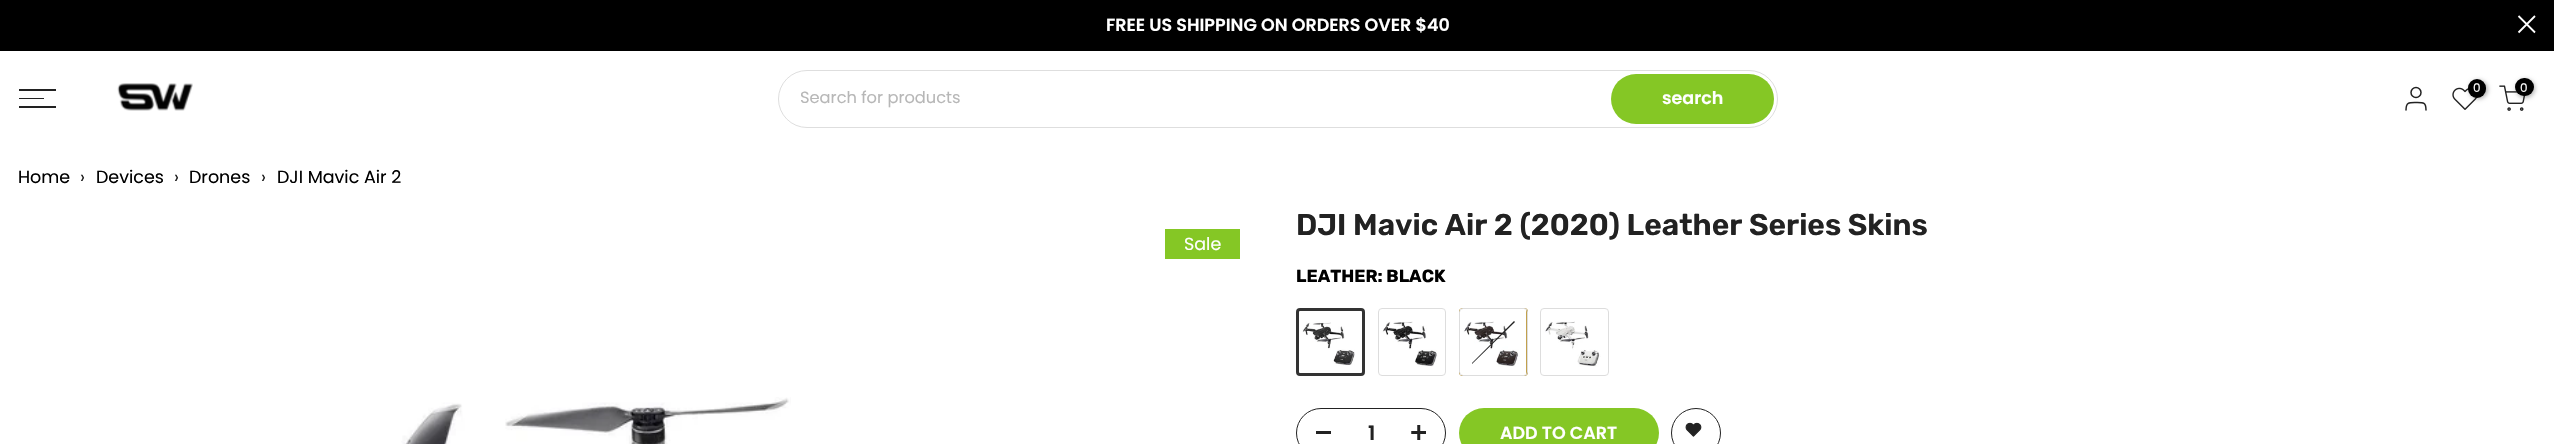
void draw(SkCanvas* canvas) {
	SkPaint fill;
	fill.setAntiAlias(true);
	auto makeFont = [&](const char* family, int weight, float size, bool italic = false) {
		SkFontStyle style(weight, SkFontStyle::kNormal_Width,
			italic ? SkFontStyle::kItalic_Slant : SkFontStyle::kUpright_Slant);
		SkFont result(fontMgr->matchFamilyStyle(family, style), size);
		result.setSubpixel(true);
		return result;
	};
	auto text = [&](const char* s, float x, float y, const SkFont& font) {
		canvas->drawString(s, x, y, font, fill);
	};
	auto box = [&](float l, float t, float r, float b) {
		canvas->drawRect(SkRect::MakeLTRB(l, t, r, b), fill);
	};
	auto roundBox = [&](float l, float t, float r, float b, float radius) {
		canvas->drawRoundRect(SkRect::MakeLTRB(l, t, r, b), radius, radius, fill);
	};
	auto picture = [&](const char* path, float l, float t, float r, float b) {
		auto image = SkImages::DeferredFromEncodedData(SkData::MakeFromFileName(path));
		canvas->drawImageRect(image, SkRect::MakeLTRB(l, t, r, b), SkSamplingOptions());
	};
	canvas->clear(0xFFFFFFFF);
	fill.setColor(0xFF000000);
	box(0, 0, 2554, 51);
	fill.setStyle(SkPaint::kStroke_Style);
	fill.setStrokeWidth(1.8f);
	fill.setColor(0xFFFFFFFF);
	canvas->drawPath(SkPathBuilder().moveTo(2535, 16).lineTo(2518.5f, 32.5f).moveTo(2535, 32.5f).lineTo(2518.5f, 16).detach(), fill);
	fill.setStyle(SkPaint::kFill_Style);
	fill.setColor(0xFF222222);
	box(19, 89, 56, 91);
	box(19, 98, 44, 99);
	box(19, 106, 56, 108);
	picture("image0.png", 117, 83, 193, 111);
	fill.setStyle(SkPaint::kStroke_Style);
	fill.setStrokeWidth(1);
	fill.setColor(0xFFDEDEDE);
	canvas->drawRoundRect(SkRect::MakeLTRB(778.5f, 70.5f, 1777.5f, 127.5f), 28.5f, 28.5f, fill);
	fill.setStyle(SkPaint::kFill_Style);
	fill.setColor(0xFF85C725);
	roundBox(1611, 74, 1774, 124, 25);
	fill.setStyle(SkPaint::kStroke_Style);
	fill.setStrokeWidth(1.5f);
	fill.setColor(0xFF222222);
	canvas->drawCircle(2416, 92.5f, 5, fill);
	fill.setStrokeCap(SkPaint::kRound_Cap);
	fill.setStrokeJoin(SkPaint::kRound_Join);
	canvas->drawPath(SkPathBuilder().moveTo(2426, 110).cubicTo(2426, 102, 2423, 102.5f, 2416, 102.5f).cubicTo(2409.5f, 102.5f, 2406, 102, 2406, 110).detach(), fill);
	picture("image1.png", 2452, 87, 2478, 110);
	fill.setStyle(SkPaint::kFill_Style);
	fill.setColor(0x4D000000);
	fill.setMaskFilter(SkMaskFilter::MakeBlur(kNormal_SkBlurStyle, 2));
	canvas->drawRoundRect(SkRect::MakeLTRB(2469, 80, 2488, 99), 9.5f, 9.5f, fill);
	fill.setMaskFilter(nullptr);
	fill.setColor(0xFF000000);
	roundBox(2468, 79, 2486, 98, 9);
	picture("image2.png", 2499, 85, 2526, 111);
	fill.setColor(0x4D000000);
	fill.setMaskFilter(SkMaskFilter::MakeBlur(kNormal_SkBlurStyle, 2));
	canvas->drawRoundRect(SkRect::MakeLTRB(2516, 79, 2535, 98), 9.5f, 9.5f, fill);
	fill.setMaskFilter(nullptr);
	fill.setColor(0xFF000000);
	roundBox(2515, 78, 2534, 96, 9);
	fill.setColor(0xFF85C725);
	box(1165, 229, 1240, 259);
	picture("image3.png", 401, 397, 791, 444);
	picture("image4.png", 1302, 313, 1360, 371);
	fill.setStyle(SkPaint::kStroke_Style);
	fill.setStrokeWidth(3);
	fill.setStrokeCap(SkPaint::kButt_Cap);
	fill.setStrokeJoin(SkPaint::kMiter_Join);
	fill.setColor(0xFF333333);
	canvas->drawRoundRect(SkRect::MakeLTRB(1297.5f, 309.5f, 1363.5f, 374.5f), 2.5f, 2.5f, fill);
	picture("image5.png", 1378, 308, 1445, 375);
	fill.setStrokeWidth(1);
	fill.setColor(0xFFDDDDDD);
	canvas->drawRoundRect(SkRect::MakeLTRB(1378.5f, 308.5f, 1445.5f, 375.5f), 3.5f, 3.5f, fill);
	fill.setStyle(SkPaint::kFill_Style);
	fill.setColor(0xFFAD8111);
	roundBox(1459, 308, 1528, 376, 4);
	picture("image6.png", 1460, 308, 1527, 375);
	fill.setStyle(SkPaint::kStroke_Style);
	fill.setColor(0xFFDDDDDD);
	canvas->drawRoundRect(SkRect::MakeLTRB(1459.5f, 308.5f, 1527.5f, 375.5f), 3.5f, 3.5f, fill);
	fill.setStyle(SkPaint::kFill_Style);
	fill.setColor(0xFF222222);
	canvas->drawPath(SkPathBuilder().moveTo(1515, 322).lineTo(1472, 364).lineTo(1472, 363).lineTo(1514, 321).close().detach(), fill);
	picture("image7.png", 1541, 308, 1608, 375);
	fill.setStyle(SkPaint::kStroke_Style);
	fill.setColor(0xFFDDDDDD);
	canvas->drawRoundRect(SkRect::MakeLTRB(1540.5f, 308.5f, 1608.5f, 375.5f), 3.5f, 3.5f, fill);
	fill.setColor(0xFF222222);
	canvas->drawRoundRect(SkRect::MakeLTRB(1296.5f, 408.5f, 1445.5f, 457.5f), 24.5f, 24.5f, fill);
	fill.setStyle(SkPaint::kFill_Style);
	box(1316, 431, 1331, 434);
	picture("image8.png", 1411, 425, 1426, 440);
	fill.setColor(0xFF85C725);
	roundBox(1459, 408, 1659, 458, 25);
	fill.setStyle(SkPaint::kStroke_Style);
	fill.setColor(0xFF222222);
	canvas->drawCircle(1696, 433, 24.5f, fill);
	picture("image9.png", 1685, 422, 1702, 437);
	auto font1 = makeFont("Poppins", 600, 17.5f);
	fill.setStyle(SkPaint::kFill_Style);
	fill.setColor(0xFFFFFFFF);
	text("FREE US SHIPPING ON ORDERS OVER $40", 1106, 31, font1);
	auto font2 = makeFont("Poppins", 400, 16.25f);
	fill.setColor(0xFFB7B7B7);
	text("Search for products", 800, 103, font2);
	fill.setColor(0xFFFFFFFF);
	text("search", 1662, 104, font1);
	auto font3 = makeFont("Poppins", 400, 12);
	text("0", 2473, 92, font3);
	text("0", 2520, 92, font3);
	auto font4 = makeFont("Poppins", 400, 17.5f);
	fill.setColor(0xFF000000);
	text("Home", 18, 183, font4);
	fill.setColor(0xFF222222);
	text("›", 80, 183, font4);
	fill.setColor(0xFF000000);
	text("Devices", 96, 183, font4);
	fill.setColor(0xFF222222);
	text("›", 174, 183, font4);
	fill.setColor(0xFF000000);
	text("Drones", 189, 183, font4);
	fill.setColor(0xFF222222);
	text("›", 261, 183, font4);
	fill.setColor(0xFF000000);
	text("DJI Mavic Air 2", 277, 183, font4);
	fill.setColor(0xFFFFFFFF);
	text("Sale", 1184, 250, font4);
	auto font5 = makeFont("Rubik", 600, 30);
	fill.setColor(0xFF222222);
	text("DJI Mavic Air 2 (2020) Leather Series Skins", 1296, 235, font5);
	auto font6 = makeFont("Rubik", 700, 17.5f);
	fill.setColor(0xFF000000);
	text("LEATHER: BLACK", 1296, 282, font6);
	auto font7 = makeFont("Poppins", 600, 20);
	fill.setColor(0xFF222222);
	text("1", 1368, 440, font7);
	fill.setColor(0xFFFFFFFF);
	text("ADD TO CART", 1500, 439, font1);
}
